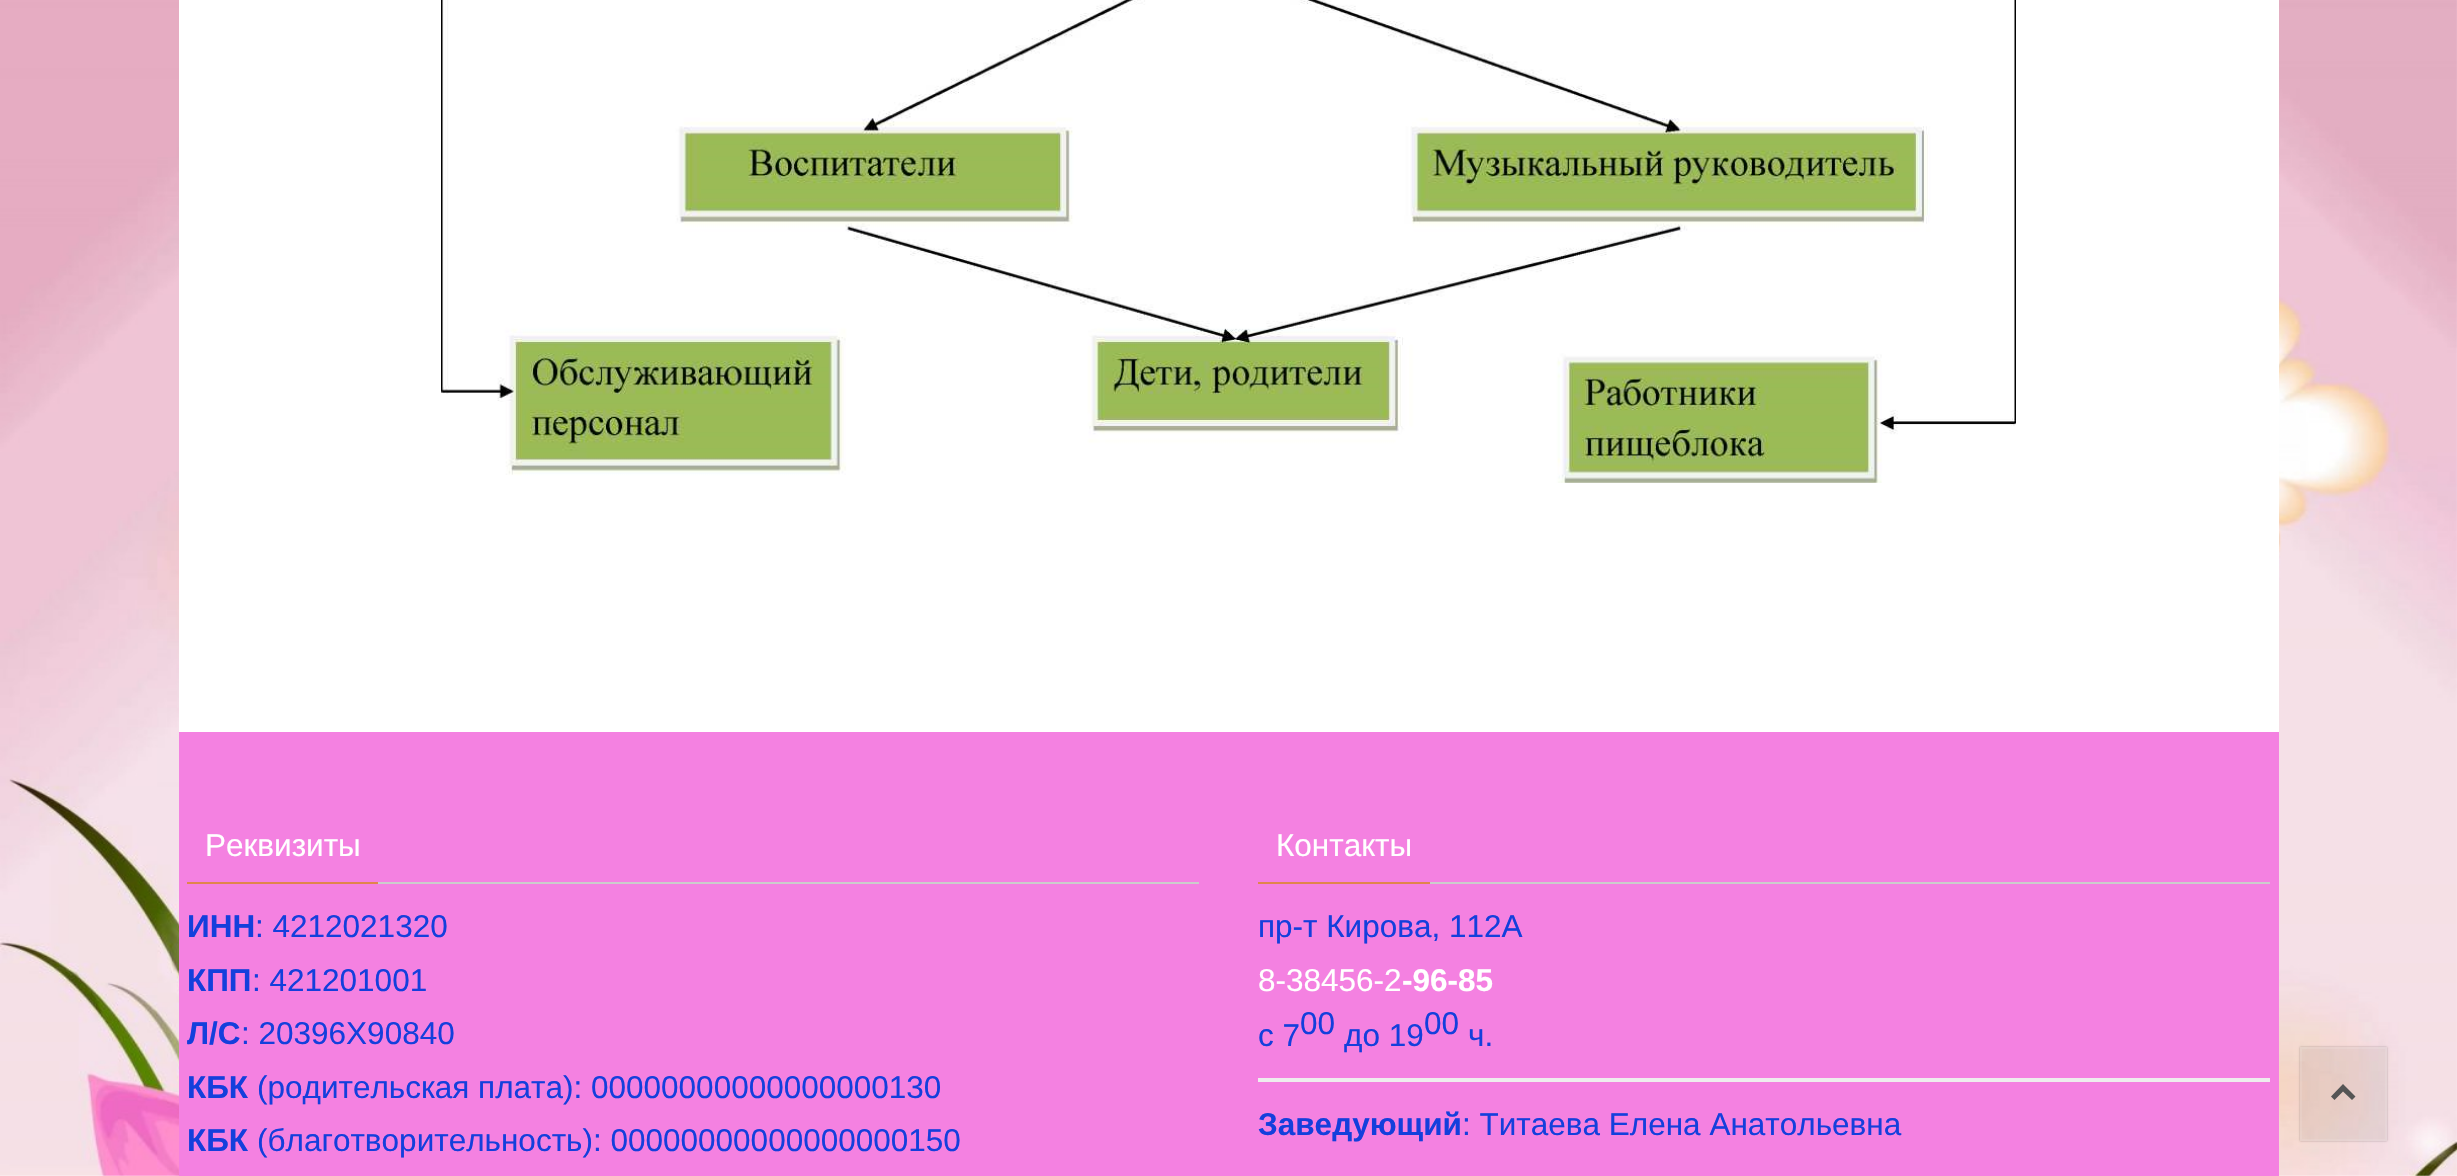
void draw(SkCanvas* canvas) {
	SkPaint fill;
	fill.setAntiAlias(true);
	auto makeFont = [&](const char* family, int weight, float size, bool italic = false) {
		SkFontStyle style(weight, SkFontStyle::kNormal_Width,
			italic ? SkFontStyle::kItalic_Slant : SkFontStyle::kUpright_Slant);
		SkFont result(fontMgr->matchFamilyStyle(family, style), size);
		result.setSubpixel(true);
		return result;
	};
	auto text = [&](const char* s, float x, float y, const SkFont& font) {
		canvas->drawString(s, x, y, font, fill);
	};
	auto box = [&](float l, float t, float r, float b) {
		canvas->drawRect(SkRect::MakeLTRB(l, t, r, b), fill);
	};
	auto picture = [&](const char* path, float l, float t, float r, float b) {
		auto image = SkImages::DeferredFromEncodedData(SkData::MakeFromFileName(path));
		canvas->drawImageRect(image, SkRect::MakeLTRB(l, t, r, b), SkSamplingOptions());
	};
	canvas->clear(0xFFFFFFFF);
	picture("image0.png", 0, 0, 2457, 1176);
	fill.setColor(0xFFFFFFFF);
	box(179, 0, 2279, 732);
	picture("image1.png", 441, 0, 2016, 483);
	fill.setColor(0xFFF481E1);
	box(179, 732, 2279, 1176);
	fill.setColor(0xFFCCCCCC);
	box(378, 882, 1199, 884);
	fill.setColor(0xFFE1854B);
	box(187, 882, 378, 884);
	fill.setColor(0xFFCCCCCC);
	box(1430, 882, 2270, 884);
	fill.setColor(0xFFE1854B);
	box(1258, 882, 1430, 884);
	fill.setColor(0xFFEEEEEE);
	box(1258, 1078, 2270, 1082);
	canvas->save();
	canvas->clipPath(SkPathBuilder(SkPathFillType::kEvenOdd).moveTo(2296, 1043).lineTo(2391, 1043).lineTo(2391, 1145).lineTo(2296, 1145).close().moveTo(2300, 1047).lineTo(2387, 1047).lineTo(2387, 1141).lineTo(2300, 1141).close().detach(), true);
	fill.setColor(0x47000000);
	fill.setMaskFilter(SkMaskFilter::MakeBlur(kNormal_SkBlurStyle, 1));
	canvas->drawRect(SkRect::MakeLTRB(2300, 1047, 2387, 1141), fill);
	fill.setMaskFilter(nullptr);
	canvas->restore();
	fill.setColor(0x0F000000);
	box(2300, 1047, 2387, 1141);
	fill.setStyle(SkPaint::kStroke_Style);
	fill.setStrokeWidth(2);
	fill.setColor(0x1AFFFFFF);
	canvas->drawRect(SkRect::MakeLTRB(2301, 1048, 2386, 1140), fill);
	fill.setStyle(SkPaint::kFill_Style);
	fill.setColor(0xFF555555);
	canvas->drawPath(SkPathBuilder().moveTo(2331, 1096.5f).lineTo(2343, 1084).lineTo(2355.5f, 1096.5f).lineTo(2352, 1100).lineTo(2343, 1091.5f).lineTo(2334.5f, 1100).close().detach(), fill);
	auto font1 = makeFont("Liberation Sans", 400, 31.5f);
	fill.setColor(0xFFFFFFFF);
	text("Реквизиты", 205, 856, font1);
	auto font2 = makeFont("Liberation Sans", 700, 31.5f);
	fill.setColor(0xFF143FDC);
	text("ИНН", 187, 937, font2);
	text(": 4212021320", 255, 937, font1);
	text("КПП", 187, 991, font2);
	text(": 421201001", 252, 991, font1);
	text("Л/С", 187, 1044, font2);
	text(": 20396X90840", 241, 1044, font1);
	text("КБК", 187, 1098, font2);
	text("(родительская плата): 00000000000000000130", 257, 1098, font1);
	text("КБК", 187, 1151, font2);
	text("(благотворительность): 00000000000000000150", 257, 1151, font1);
	fill.setColor(0xFFFFFFFF);
	text("Контакты", 1276, 856, font1);
	fill.setColor(0xFF143FDC);
	text("пр-т Кирова, 112А", 1258, 937, font1);
	fill.setColor(0xFFFFFFFF);
	text("8-38456-2", 1258, 991, font1);
	text("-96-85", 1402, 991, font2);
	fill.setColor(0xFF143FDC);
	text("с 7", 1258, 1046, font1);
	text("00", 1300, 1034, font1);
	text("до 19", 1344, 1046, font1);
	text("00", 1424, 1034, font1);
	text("ч.", 1468, 1046, font1);
	text("Заведующий", 1258, 1135, font2);
	text(": Титаева Елена Анатольевна", 1462, 1135, font1);
}
